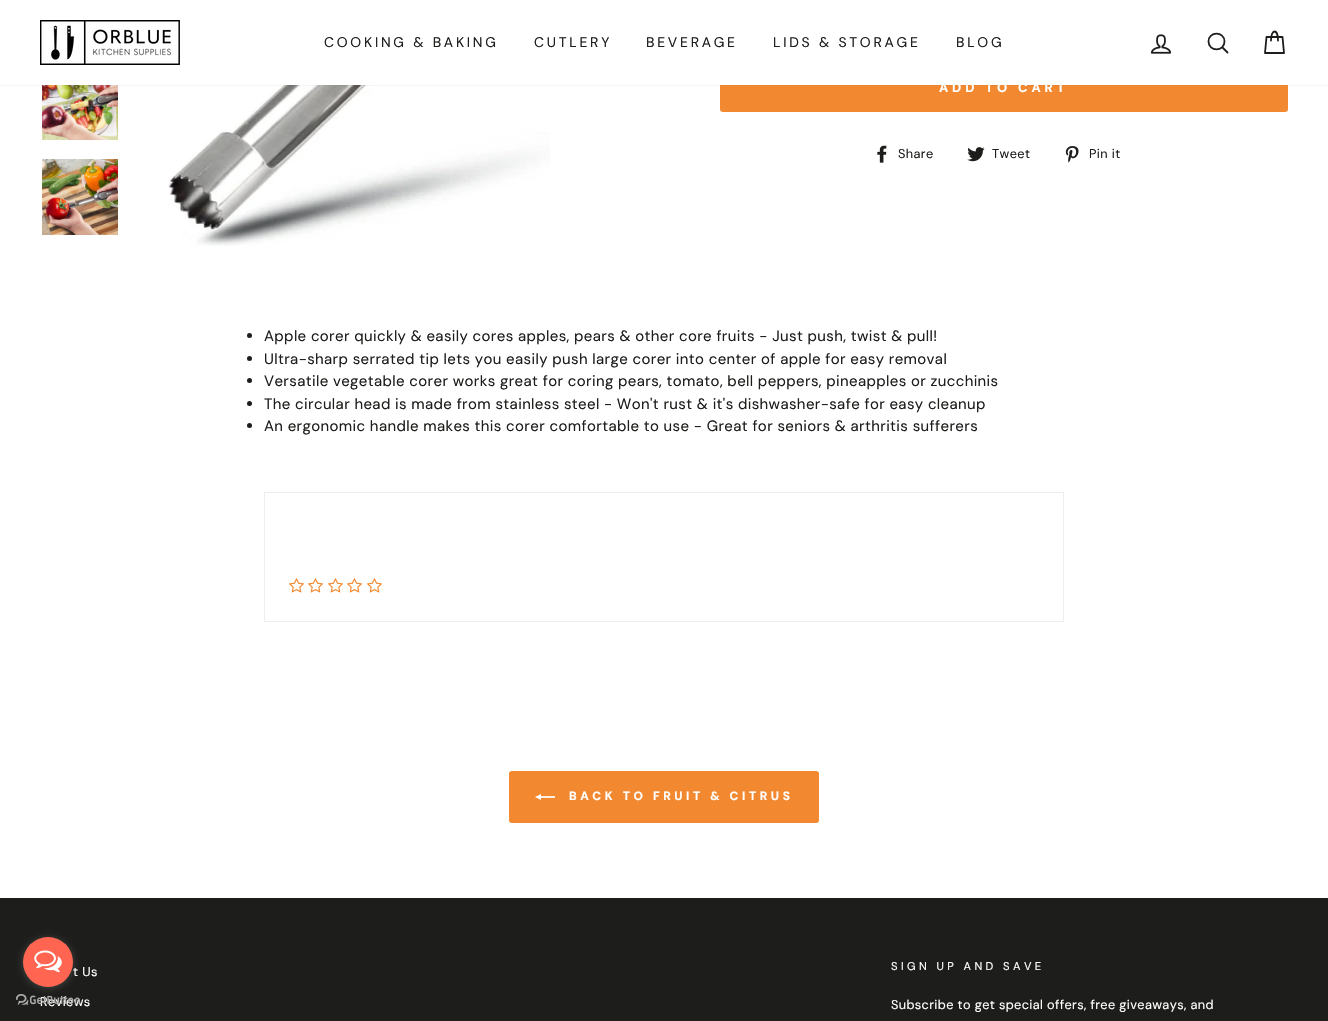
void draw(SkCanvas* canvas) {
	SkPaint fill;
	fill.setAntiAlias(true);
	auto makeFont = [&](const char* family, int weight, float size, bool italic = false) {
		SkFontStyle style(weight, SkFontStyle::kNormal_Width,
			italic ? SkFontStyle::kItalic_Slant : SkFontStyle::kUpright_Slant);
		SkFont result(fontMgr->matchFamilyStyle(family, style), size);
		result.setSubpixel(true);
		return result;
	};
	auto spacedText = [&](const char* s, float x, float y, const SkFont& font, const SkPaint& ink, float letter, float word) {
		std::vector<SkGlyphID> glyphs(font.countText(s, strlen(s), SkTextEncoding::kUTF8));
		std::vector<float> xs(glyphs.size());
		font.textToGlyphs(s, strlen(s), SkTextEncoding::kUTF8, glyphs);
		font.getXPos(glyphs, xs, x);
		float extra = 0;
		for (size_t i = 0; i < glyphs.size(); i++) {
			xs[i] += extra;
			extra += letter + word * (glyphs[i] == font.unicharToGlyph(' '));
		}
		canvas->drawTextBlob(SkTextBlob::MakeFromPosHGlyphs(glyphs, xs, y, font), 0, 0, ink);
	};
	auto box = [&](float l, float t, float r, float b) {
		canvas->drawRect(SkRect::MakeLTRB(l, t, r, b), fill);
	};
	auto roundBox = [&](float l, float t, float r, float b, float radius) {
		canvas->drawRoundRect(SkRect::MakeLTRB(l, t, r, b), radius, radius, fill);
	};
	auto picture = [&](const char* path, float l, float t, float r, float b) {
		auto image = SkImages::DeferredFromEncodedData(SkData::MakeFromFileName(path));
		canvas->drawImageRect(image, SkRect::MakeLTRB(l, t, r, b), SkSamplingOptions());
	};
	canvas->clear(0xFFFFFFFF);
	picture("image2.png", 42, 85, 118, 140);
	picture("image4.png", 168, 85, 550, 246);
	fill.setColor(0xFFF2882F);
	roundBox(720, 65, 1288, 112, 3);
	fill.setColor(0x33000000);
	fill.setMaskFilter(SkMaskFilter::MakeBlur(kNormal_SkBlurStyle, 0.5f));
	canvas->drawRect(SkRect::MakeLTRB(0, 0, 1328, 85), fill);
	fill.setMaskFilter(nullptr);
	fill.setColor(0xFFFFFFFF);
	box(0, 0, 1328, 85);
	picture("image0.png", 40, 20, 180, 65);
	picture("image1.png", 1150, 34, 1172, 54);
	fill.setStyle(SkPaint::kStroke_Style);
	fill.setStrokeWidth(1.8f);
	fill.setStrokeCap(SkPaint::kRound_Cap);
	fill.setStrokeJoin(SkPaint::kRound_Join);
	fill.setColor(0xFF1D1D1B);
	canvas->drawPath(SkPathBuilder().moveTo(1224.5f, 41.5f).cubicTo(1224.5f, 52, 1208.5f, 52, 1208.5f, 41.5f).cubicTo(1208.5f, 31, 1224.5f, 31, 1224.5f, 41.5f).close().moveTo(1227.5f, 52.5f).lineTo(1222.5f, 47.5f).detach(), fill);
	canvas->drawPath(SkPathBuilder().moveTo(1271, 40.5f).cubicTo(1271, 28.5f, 1278, 28.5f, 1278, 40.5f).moveTo(1266.5f, 37).lineTo(1282.5f, 37).lineTo(1284, 53).lineTo(1265, 53).close().detach(), fill);
	picture("image3.png", 42, 159, 118, 235);
	picture("image5.png", 877, 145, 887, 163);
	picture("image6.png", 967, 147, 985, 162);
	picture("image7.png", 1065, 146, 1079, 163);
	fill.setStyle(SkPaint::kFill_Style);
	canvas->drawCircle(249.5f, 335.5f, 2.5f, fill);
	canvas->drawCircle(249.5f, 358.5f, 2.5f, fill);
	canvas->drawCircle(249.5f, 380.5f, 2.5f, fill);
	canvas->drawCircle(249.5f, 403.5f, 2.5f, fill);
	canvas->drawCircle(249.5f, 425.5f, 2.5f, fill);
	fill.setStyle(SkPaint::kStroke_Style);
	fill.setStrokeWidth(1);
	fill.setStrokeCap(SkPaint::kButt_Cap);
	fill.setStrokeJoin(SkPaint::kMiter_Join);
	fill.setColor(0xFFEEEEEE);
	canvas->drawRect(SkRect::MakeLTRB(264.5f, 492.5f, 1063.5f, 621.5f), fill);
	picture("image8.png", 289, 578, 304, 593);
	picture("image8.png", 308, 578, 323, 593);
	picture("image8.png", 328, 578, 343, 593);
	picture("image8.png", 347, 578, 362, 593);
	picture("image8.png", 367, 578, 382, 593);
	fill.setStyle(SkPaint::kFill_Style);
	fill.setColor(0xFFF2882F);
	roundBox(509, 771, 819, 823, 3);
	picture("image9.png", 535, 794, 555, 800);
	fill.setColor(0xFF1D1D1B);
	box(0, 898, 1328, 1021);
	auto font1 = makeFont("DM Sans", 400, 14);
	spacedText("COOKING & BAKING", 324, 47, font1, fill, 2.75f, 0);
	spacedText("CUTLERY", 534, 47, font1, fill, 2.75f, 0);
	spacedText("BEVERAGE", 646, 47, font1, fill, 2.75f, 0);
	spacedText("LIDS & STORAGE", 773, 47, font1, fill, 2.75f, 0);
	spacedText("BLOG", 956, 47, font1, fill, 2.75f, 0);
	auto font2 = makeFont("DM Sans", 700, 13);
	fill.setColor(0xFFFFFFFF);
	spacedText("ADD TO CART", 939, 92, font2, fill, 3.9f, 0);
	auto font3 = makeFont("DM Sans", 400, 12.75f);
	fill.setColor(0xFF1D1D1B);
	spacedText("Share", 898, 158, font3, fill, 0.38f, 0);
	spacedText("Tweet", 992, 158, font3, fill, 0.38f, 0);
	spacedText("Pin it", 1089, 158, font3, fill, 0.38f, 0);
	auto font4 = makeFont("DM Sans", 400, 15);
	spacedText("Apple corer quickly & easily cores apples, pears & other core fruits - Just push, twist & pull!", 264, 341, font4, fill, 0.38f, 0);
	spacedText("Ultra-sharp serrated tip lets you easily push large corer into center of apple for easy removal", 264, 364, font4, fill, 0.38f, 0);
	spacedText("Versatile vegetable corer works great for coring pears, tomato, bell peppers, pineapples or zucchinis", 264, 386, font4, fill, 0.38f, 0);
	spacedText("The circular head is made from stainless steel - Won't rust & it's dishwasher-safe for easy cleanup", 264, 409, font4, fill, 0.38f, 0);
	spacedText("An ergonomic handle makes this corer comfortable to use - Great for seniors & arthritis sufferers", 264, 431, font4, fill, 0.38f, 0);
	auto font5 = makeFont("DM Sans", 700, 12);
	fill.setColor(0xFFFFFFFF);
	spacedText("BACK TO FRUIT & CITRUS", 569, 800, font5, fill, 3.6f, 0);
	spacedText("t Us", 73, 976, font3, fill, 0.38f, 0);
	spacedText("Reviews", 40, 1006, font3, fill, 0.38f, 0);
	auto font6 = makeFont("DM Sans", 400, 11.25f);
	spacedText("SIGN UP AND SAVE", 891, 970, font6, fill, 3.4f, 0);
	spacedText("Subscribe to get special offers, free giveaways, and", 891, 1009, font3, fill, 0.38f, 0);
	picture("image11.png", 16, 994, 80, 1005);
	fill.setColor(0x66888888);
	fill.setMaskFilter(SkMaskFilter::MakeBlur(kNormal_SkBlurStyle, 3.5f));
	canvas->drawRoundRect(SkRect::MakeLTRB(23, 938, 73, 988), 25, 25, fill);
	fill.setMaskFilter(nullptr);
	fill.setColor(0xFFFF6550);
	canvas->drawCircle(48, 962, 25, fill);
	picture("image10.png", 34, 950, 62, 973);
}
